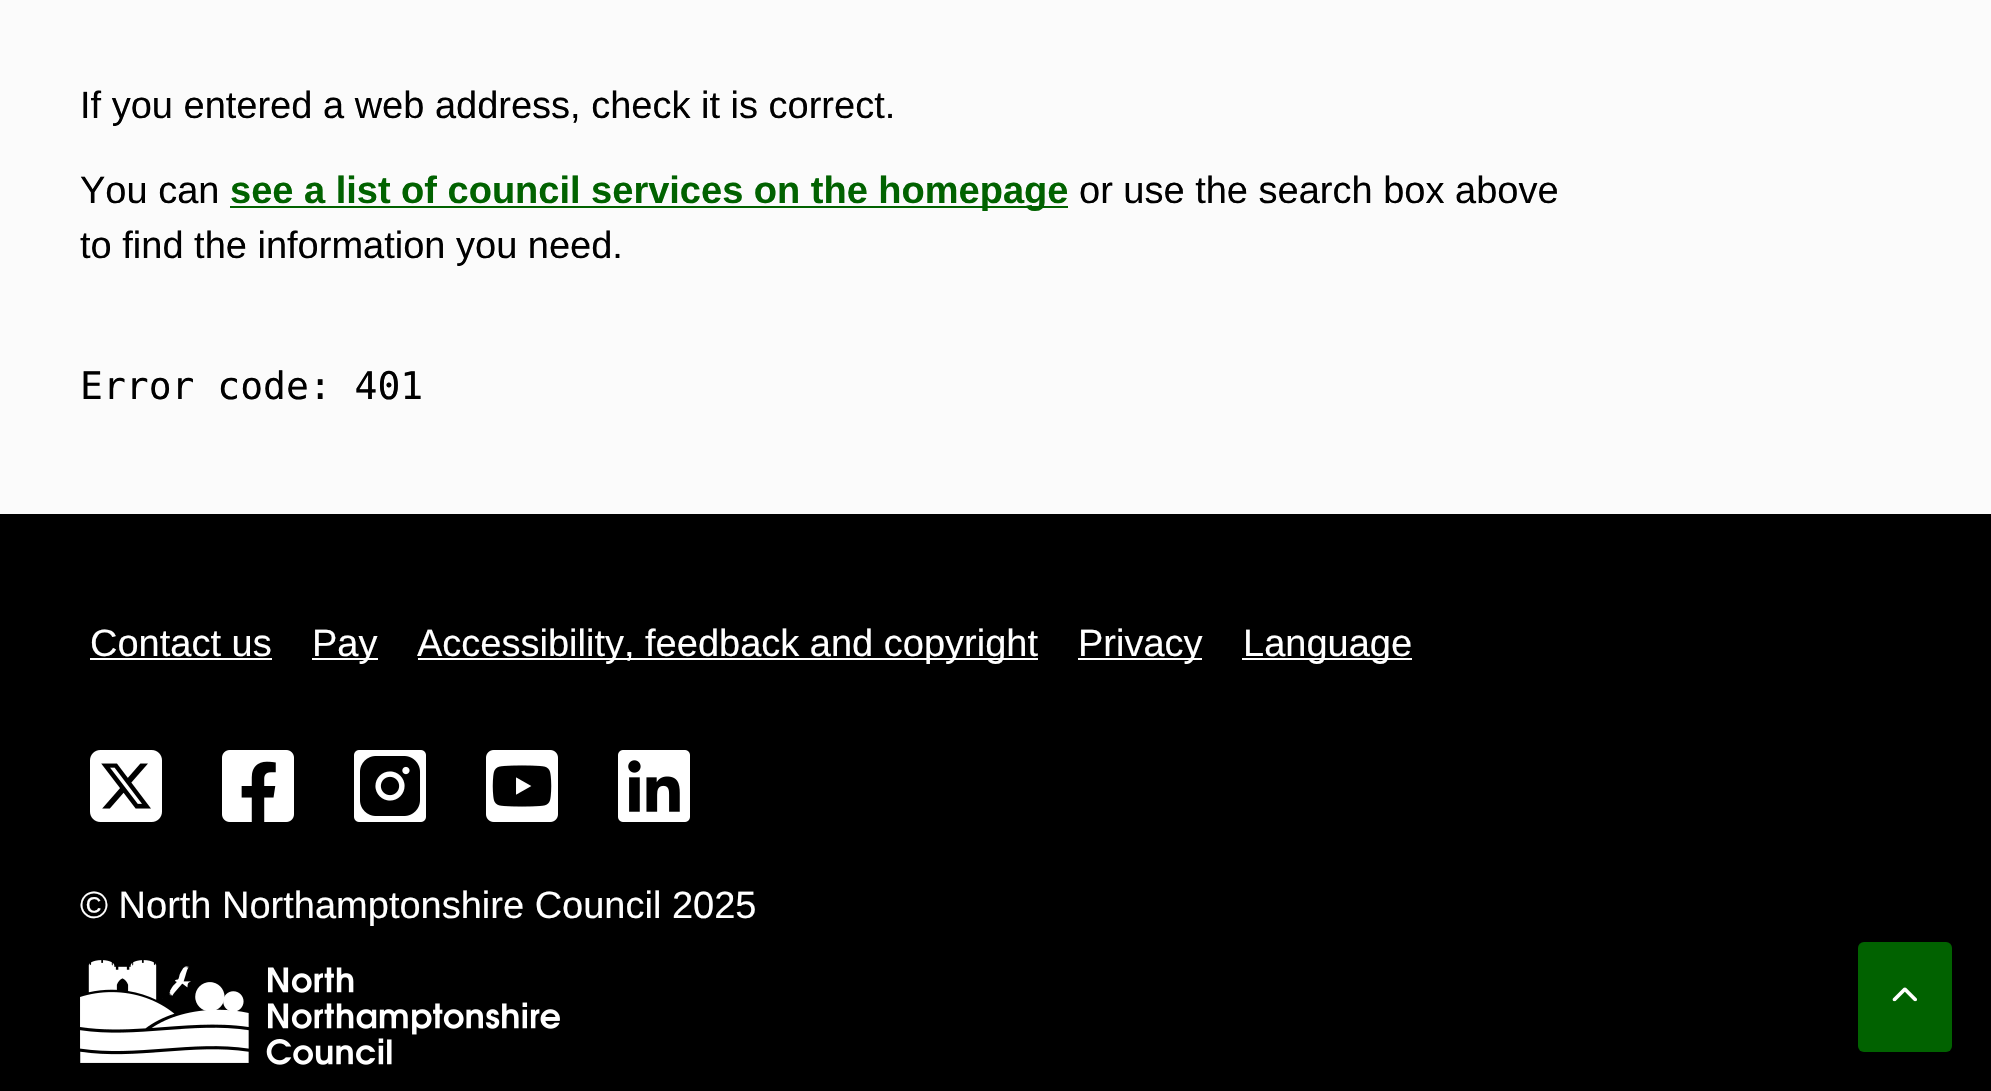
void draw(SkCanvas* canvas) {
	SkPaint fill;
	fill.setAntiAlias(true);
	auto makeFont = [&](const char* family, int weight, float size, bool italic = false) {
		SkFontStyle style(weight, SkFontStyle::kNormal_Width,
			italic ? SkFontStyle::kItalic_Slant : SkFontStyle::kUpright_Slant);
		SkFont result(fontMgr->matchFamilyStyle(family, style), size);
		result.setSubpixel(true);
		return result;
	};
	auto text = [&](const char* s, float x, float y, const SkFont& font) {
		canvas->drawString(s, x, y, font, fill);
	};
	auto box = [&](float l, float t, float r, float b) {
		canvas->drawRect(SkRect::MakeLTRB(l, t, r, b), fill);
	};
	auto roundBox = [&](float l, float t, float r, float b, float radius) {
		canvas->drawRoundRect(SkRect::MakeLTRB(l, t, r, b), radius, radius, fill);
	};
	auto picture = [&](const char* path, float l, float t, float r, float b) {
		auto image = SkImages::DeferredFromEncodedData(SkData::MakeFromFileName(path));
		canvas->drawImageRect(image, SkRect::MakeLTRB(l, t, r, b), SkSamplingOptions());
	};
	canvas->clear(0xFFFBFBFB);
	fill.setColor(0xFF016200);
	box(230, 206, 1068, 208);
	fill.setColor(0xFF000000);
	box(0, 514, 1991, 1091);
	fill.setColor(0xFFFFFFFF);
	box(90, 658, 272, 660);
	box(312, 658, 378, 660);
	box(418, 658, 1038, 660);
	box(1078, 658, 1202, 660);
	box(1242, 658, 1412, 660);
	picture("image0.png", 90, 750, 162, 822);
	picture("image1.png", 222, 750, 294, 822);
	picture("image2.png", 354, 750, 426, 822);
	picture("image3.png", 486, 750, 558, 822);
	picture("image4.png", 618, 750, 690, 822);
	picture("image5.png", 80, 960, 560, 1065);
	fill.setColor(0xFF016200);
	roundBox(1858, 942, 1952, 1052, 6);
	picture("image6.png", 1892, 987, 1917, 1002);
	auto font1 = makeFont("Liberation Sans", 400, 38);
	fill.setColor(0xFF000000);
	text("If you entered a web address, check it is correct.", 80, 118, font1);
	text("You can", 80, 203, font1);
	auto font2 = makeFont("Liberation Sans", 700, 38);
	fill.setColor(0xFF016200);
	text("see a list of council services on the homepage", 230, 203, font2);
	fill.setColor(0xFF000000);
	text("or use the search box above", 1079, 203, font1);
	text("to find the information you need.", 80, 258, font1);
	auto font3 = makeFont("DejaVu Sans Mono", 400, 38);
	text("Error code: 401", 80, 399, font3);
	fill.setColor(0xFFFFFFFF);
	text("Contact us", 90, 656, font1);
	text("Pay", 312, 656, font1);
	text("Accessibility, feedback and copyright", 417, 656, font1);
	text("Privacy", 1078, 656, font1);
	text("Language", 1243, 656, font1);
	text("© North Northamptonshire Council 2025", 80, 918, font1);
}
